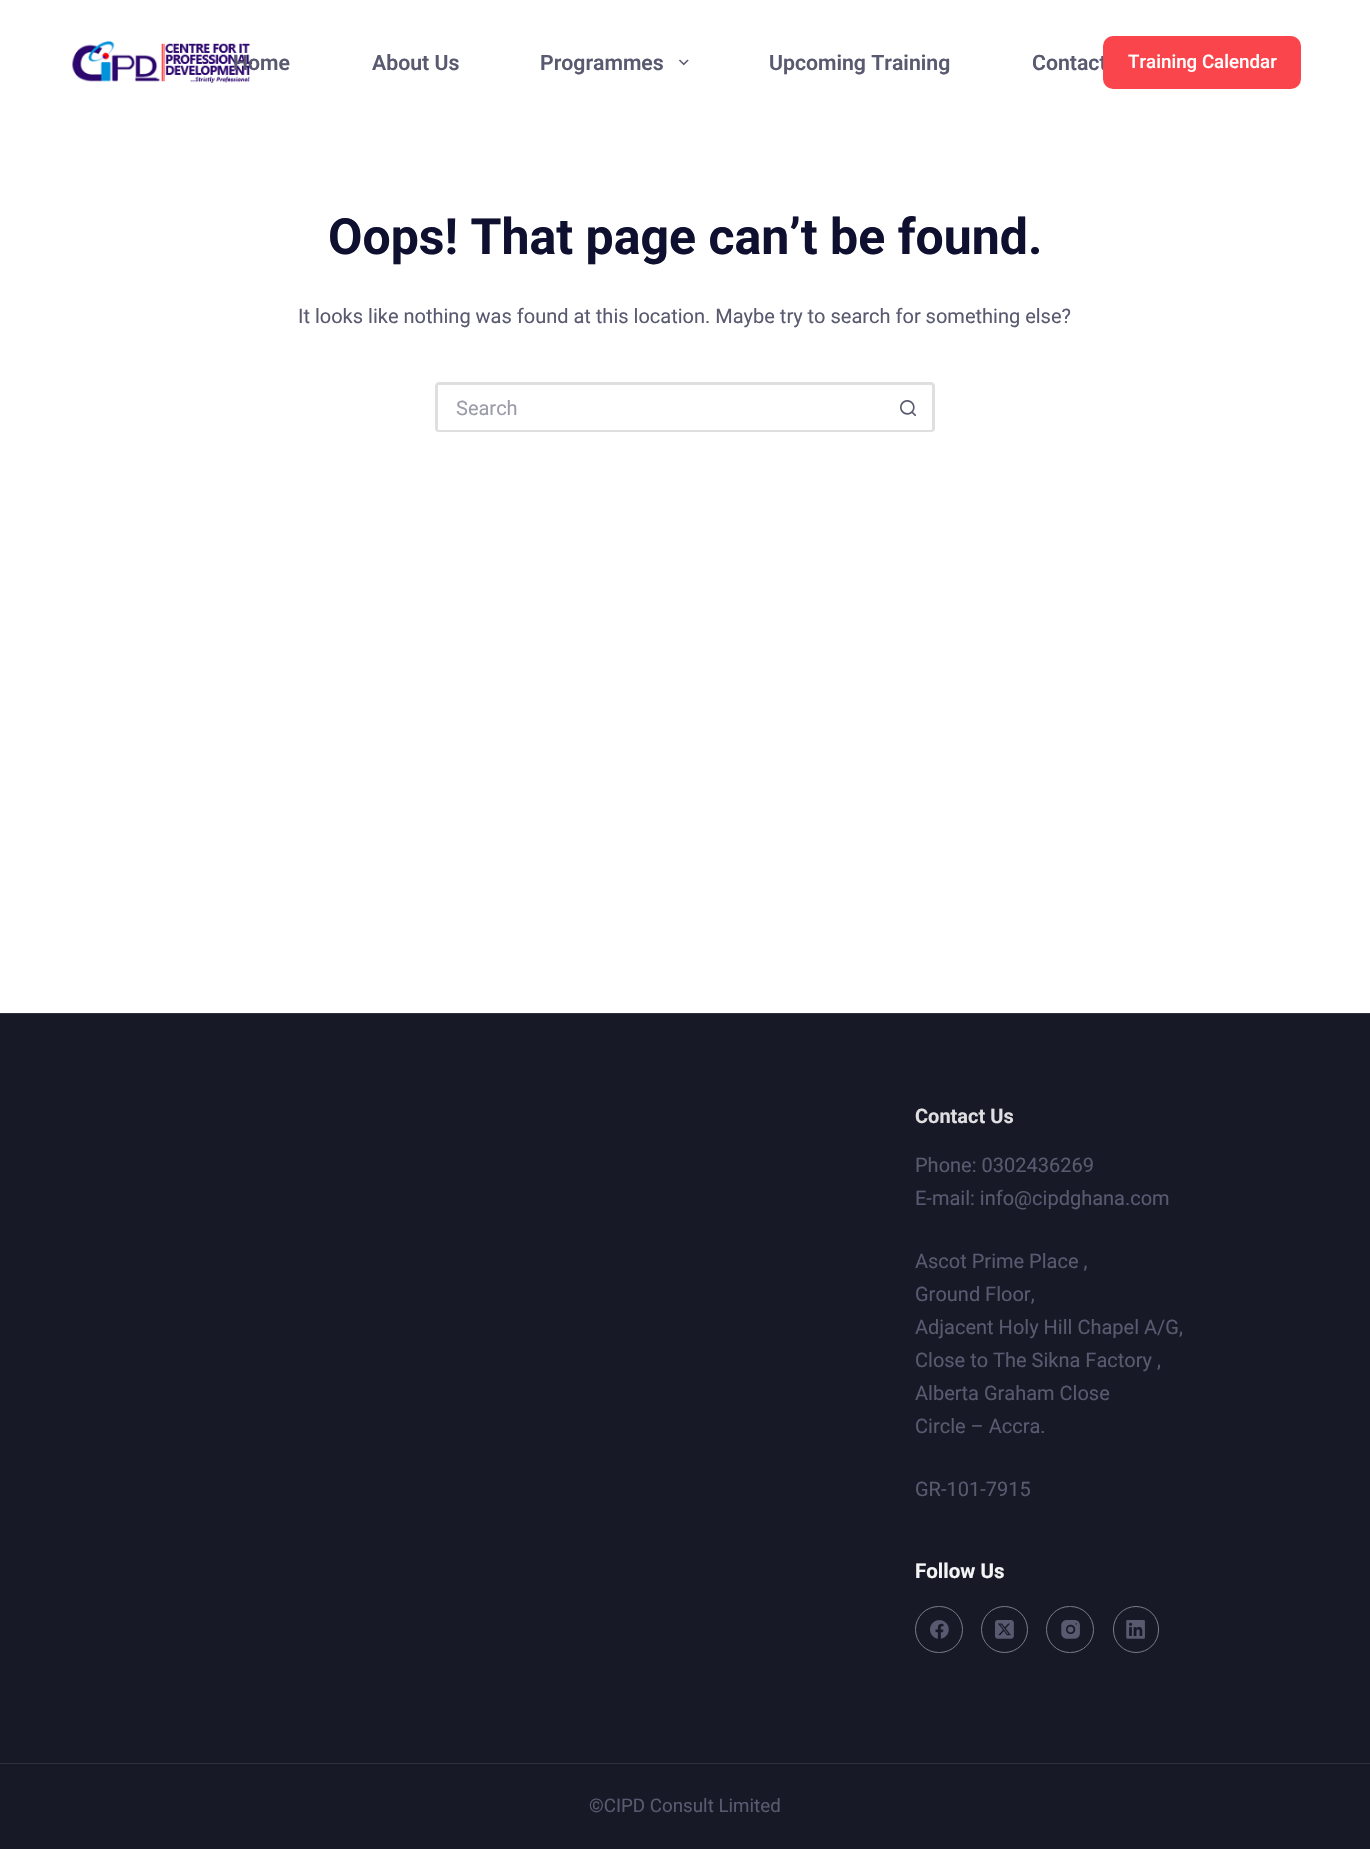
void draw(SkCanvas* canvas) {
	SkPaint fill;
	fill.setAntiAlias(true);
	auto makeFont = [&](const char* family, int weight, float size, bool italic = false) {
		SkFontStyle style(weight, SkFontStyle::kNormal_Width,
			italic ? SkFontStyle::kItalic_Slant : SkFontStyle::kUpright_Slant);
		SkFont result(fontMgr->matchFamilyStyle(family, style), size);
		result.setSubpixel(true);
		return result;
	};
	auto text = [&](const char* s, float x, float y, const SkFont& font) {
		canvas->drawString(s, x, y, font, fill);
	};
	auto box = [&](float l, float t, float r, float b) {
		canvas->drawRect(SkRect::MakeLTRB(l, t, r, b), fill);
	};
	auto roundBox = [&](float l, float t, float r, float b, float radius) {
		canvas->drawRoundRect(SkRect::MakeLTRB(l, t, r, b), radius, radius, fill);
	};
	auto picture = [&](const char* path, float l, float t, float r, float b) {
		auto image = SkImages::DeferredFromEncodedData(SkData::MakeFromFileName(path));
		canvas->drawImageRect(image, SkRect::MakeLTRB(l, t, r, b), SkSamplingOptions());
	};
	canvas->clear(0xFFFFFFFF);
	picture("image0.png", 72, 41, 253, 84);
	picture("image1.png", 679, 59, 689, 66);
	fill.setColor(0xFFDFDFE2);
	canvas->drawPath(SkPathBuilder(SkPathFillType::kEvenOdd).moveTo(439, 382).lineTo(885, 382).lineTo(885, 432).lineTo(439, 432).cubicTo(437, 432, 435, 431, 435, 429).lineTo(435, 386).cubicTo(435, 384, 437, 382, 439, 382).close().moveTo(439, 385).lineTo(885, 385).lineTo(885, 430).lineTo(438, 430).lineTo(438, 429).lineTo(438, 386).cubicTo(438, 386, 438, 385, 439, 385).close().detach(), fill);
	canvas->drawPath(SkPathBuilder(SkPathFillType::kEvenOdd).moveTo(885, 382).lineTo(931, 382).cubicTo(933, 382, 935, 384, 935, 386).lineTo(935, 429).cubicTo(935, 431, 933, 432, 931, 432).lineTo(885, 432).close().moveTo(885, 385).lineTo(931, 385).cubicTo(932, 385, 932, 386, 932, 386).lineTo(932, 429).cubicTo(932, 429, 932, 430, 931, 430).lineTo(885, 430).close().detach(), fill);
	picture("image2.png", 900, 400, 916, 416);
	fill.setColor(0xFF171927);
	box(0, 1014, 1370, 1849);
	fill.setColor(0xFF2E303D);
	box(0, 1013, 1370, 1014);
	fill.setStyle(SkPaint::kStroke_Style);
	fill.setStrokeWidth(1);
	fill.setColor(0xFF797C86);
	canvas->drawRoundRect(SkRect::MakeLTRB(915.5f, 1606.5f, 962.5f, 1652.5f), 23, 23, fill);
	picture("image3.png", 930, 1620, 949, 1639);
	canvas->drawCircle(1004.5f, 1629.5f, 23, fill);
	picture("image4.png", 995, 1620, 1014, 1639);
	canvas->drawRoundRect(SkRect::MakeLTRB(1046.5f, 1606.5f, 1093.5f, 1652.5f), 23, 23, fill);
	picture("image5.png", 1061, 1620, 1080, 1639);
	canvas->drawRoundRect(SkRect::MakeLTRB(1113.5f, 1606.5f, 1158.5f, 1652.5f), 22.5f, 22.5f, fill);
	picture("image6.png", 1126, 1620, 1145, 1639);
	fill.setStyle(SkPaint::kFill_Style);
	fill.setColor(0xFF2E303D);
	box(0, 1763, 1370, 1764);
	auto font1 = makeFont("Roboto", 600, 21.25f);
	fill.setColor(0xFF595970);
	text("Home", 233, 70, font1);
	text("About Us", 372, 70, font1);
	text("Programmes", 540, 70, font1);
	text("Upcoming Training", 769, 70, font1);
	text("Contact", 1032, 70, font1);
	fill.setColor(0xFFFB454C);
	roundBox(1103, 36, 1301, 89, 10);
	auto font2 = makeFont("Roboto", 500, 18.75f);
	fill.setColor(0xFFFFFFFF);
	text("Training Calendar", 1128, 68, font2);
	auto font3 = makeFont("Roboto", 700, 50);
	fill.setColor(0xFF0F0F30);
	text("Oops! That page can’t be found.", 328, 254, font3);
	auto font4 = makeFont("Roboto", 400, 20);
	fill.setColor(0xFF595970);
	text("It looks like nothing was found at this location. Maybe try to search for something else?", 298, 323, font4);
	fill.setColor(0xFF9B9BA9);
	text("Search", 456, 415, font4);
	auto font5 = makeFont("Roboto", 700, 20);
	fill.setColor(0xFFDFDFE2);
	text("Contact Us", 915, 1123, font5);
	fill.setColor(0xFF595970);
	text("Phone: 0302436269", 915, 1172, font4);
	text("E-mail: info@cipdghana.com", 915, 1205, font4);
	text("Ascot Prime Place ,", 915, 1268, font4);
	text("Ground Floor,", 915, 1301, font4);
	text("Adjacent Holy Hill Chapel A/G,", 915, 1334, font4);
	text("Close to The Sikna Factory ,", 915, 1367, font4);
	text("Alberta Graham Close", 915, 1400, font4);
	text("Circle – Accra.", 915, 1433, font4);
	text("GR-101-7915", 915, 1496, font4);
	auto font6 = makeFont("Roboto", 700, 20.5f);
	fill.setColor(0xFFF4F4F5);
	text("Follow Us", 915, 1578, font6);
	auto font7 = makeFont("Roboto", 400, 18.75f);
	fill.setColor(0xFF595970);
	text("©CIPD Consult Limited", 589, 1812, font7);
}
